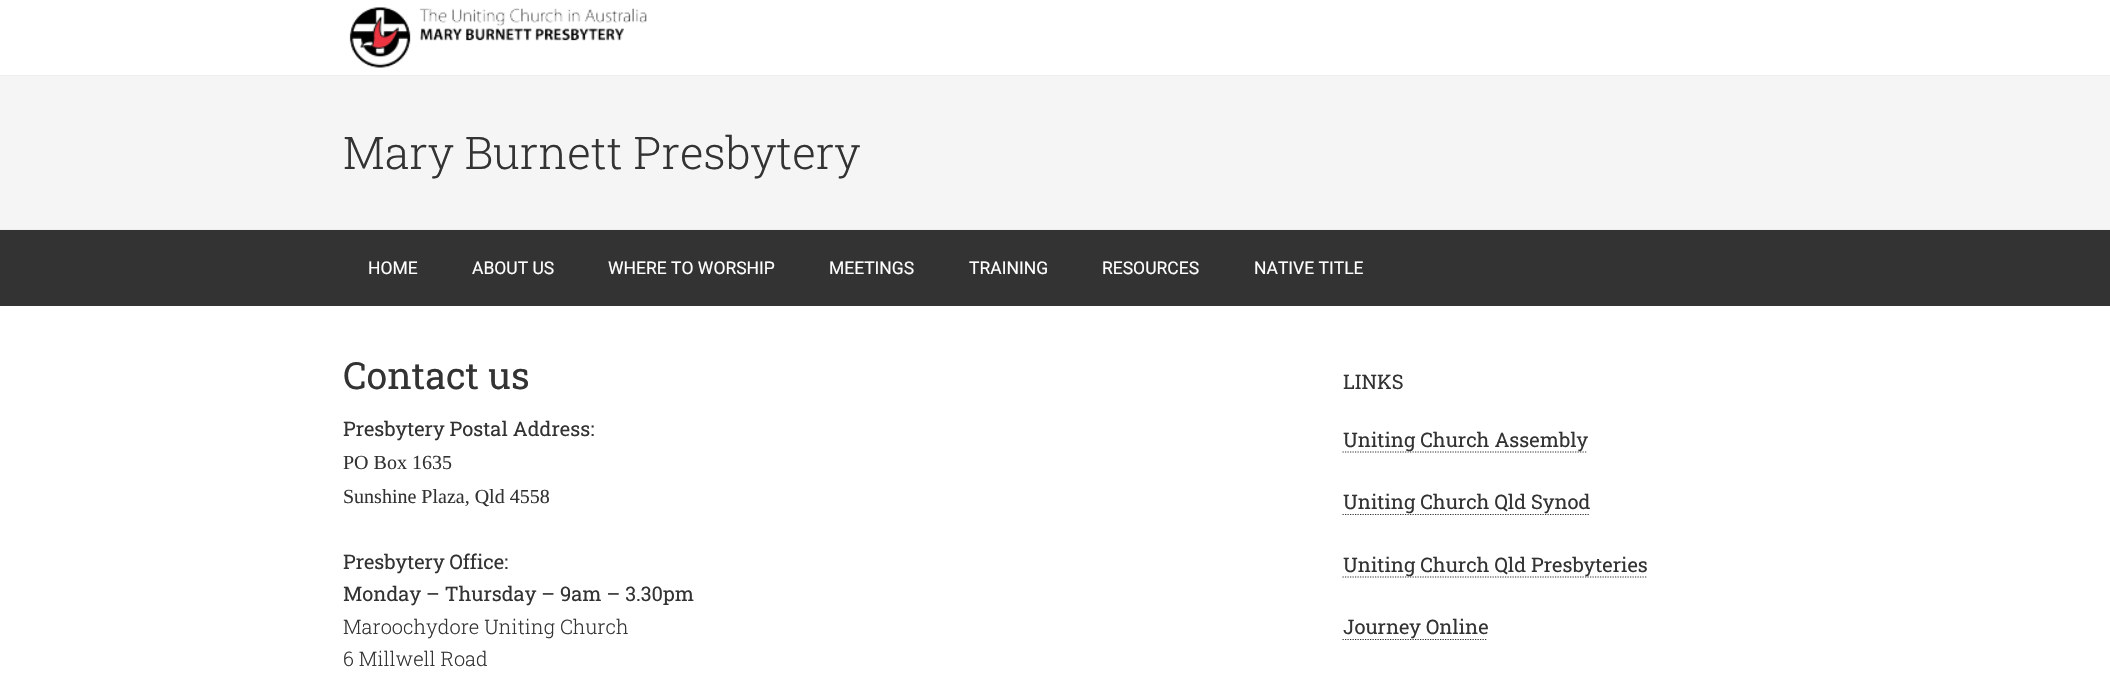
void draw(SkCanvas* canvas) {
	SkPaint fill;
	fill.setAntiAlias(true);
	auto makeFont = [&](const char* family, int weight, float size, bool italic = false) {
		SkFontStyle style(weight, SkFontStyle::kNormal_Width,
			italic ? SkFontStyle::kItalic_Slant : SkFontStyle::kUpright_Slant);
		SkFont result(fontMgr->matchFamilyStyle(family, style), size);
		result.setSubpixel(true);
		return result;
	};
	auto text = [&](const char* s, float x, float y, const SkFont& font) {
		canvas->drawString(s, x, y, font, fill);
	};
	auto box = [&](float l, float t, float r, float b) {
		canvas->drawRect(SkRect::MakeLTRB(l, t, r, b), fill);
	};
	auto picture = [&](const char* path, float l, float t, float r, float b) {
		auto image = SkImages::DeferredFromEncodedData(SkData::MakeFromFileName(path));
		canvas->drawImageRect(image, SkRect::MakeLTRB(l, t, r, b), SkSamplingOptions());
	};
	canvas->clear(0xFFFFFFFF);
	fill.setColor(0xFFEEEEEE);
	box(0, 75, 2110, 76);
	picture("image0.png", 349, 7, 647, 68);
	fill.setColor(0xFFF5F5F5);
	box(0, 76, 2110, 229);
	fill.setColor(0xFFEEEEEE);
	box(0, 229, 2110, 230);
	fill.setColor(0xFF333333);
	box(0, 230, 2110, 306);
	fill.setStyle(SkPaint::kStroke_Style);
	fill.setStrokeWidth(1.2f);
	fill.setPathEffect(SkDashPathEffect::Make({{1.25f, 1.25f}}, 0));
	canvas->drawPath(SkPathBuilder().moveTo(1342.5f, 452).lineTo(1587.5f, 452).detach(), fill);
	fill.setPathEffect(nullptr);
	fill.setPathEffect(SkDashPathEffect::Make({{1.25f, 1.25f}}, 0));
	canvas->drawPath(SkPathBuilder().moveTo(1342.5f, 514.5f).lineTo(1590, 514.5f).detach(), fill);
	fill.setPathEffect(nullptr);
	fill.setPathEffect(SkDashPathEffect::Make({{1.25f, 1.25f}}, 0));
	canvas->drawPath(SkPathBuilder().moveTo(1342.5f, 577).lineTo(1647.5f, 577).detach(), fill);
	fill.setPathEffect(nullptr);
	fill.setPathEffect(SkDashPathEffect::Make({{1.25f, 1.25f}}, 0));
	canvas->drawPath(SkPathBuilder().moveTo(1342.5f, 639.5f).lineTo(1487.5f, 639.5f).detach(), fill);
	fill.setPathEffect(nullptr);
	auto font1 = makeFont("Roboto Slab", 300, 45);
	fill.setStyle(SkPaint::kFill_Style);
	text("Mary Burnett Presbytery", 343, 169, font1);
	auto font2 = makeFont("Roboto", 400, 17.5f);
	fill.setColor(0xFFFFFFFF);
	text("HOME", 368, 274, font2);
	text("ABOUT US", 472, 274, font2);
	text("WHERE TO WORSHIP", 608, 274, font2);
	text("MEETINGS", 829, 274, font2);
	text("TRAINING", 969, 274, font2);
	text("RESOURCES", 1102, 274, font2);
	text("NATIVE TITLE", 1254, 274, font2);
	auto font3 = makeFont("Roboto Slab", 400, 37.5f);
	fill.setColor(0xFF333333);
	text("Contact us", 343, 389, font3);
	auto font4 = makeFont("Roboto Slab", 400, 20);
	text("Presbytery Postal Address:", 343, 436, font4);
	auto font5 = makeFont("Liberation Serif", 400, 20);
	text("PO Box 1635", 343, 469, font5);
	text("Sunshine Plaza, Qld 4558", 343, 503, font5);
	text("Presbytery Office:", 343, 569, font4);
	text("Monday – Thursday – 9am – 3.30pm", 343, 601, font4);
	auto font6 = makeFont("Roboto Slab", 300, 20);
	text("Maroochydore Uniting Church", 343, 634, font6);
	text("6 Millwell Road", 343, 666, font6);
	text("LINKS", 1343, 389, font4);
	text("Uniting Church Assembly", 1343, 447, font4);
	text("Uniting Church Qld Synod", 1343, 509, font4);
	text("Uniting Church Qld Presbyteries", 1343, 572, font4);
	text("Journey Online", 1343, 634, font4);
}
